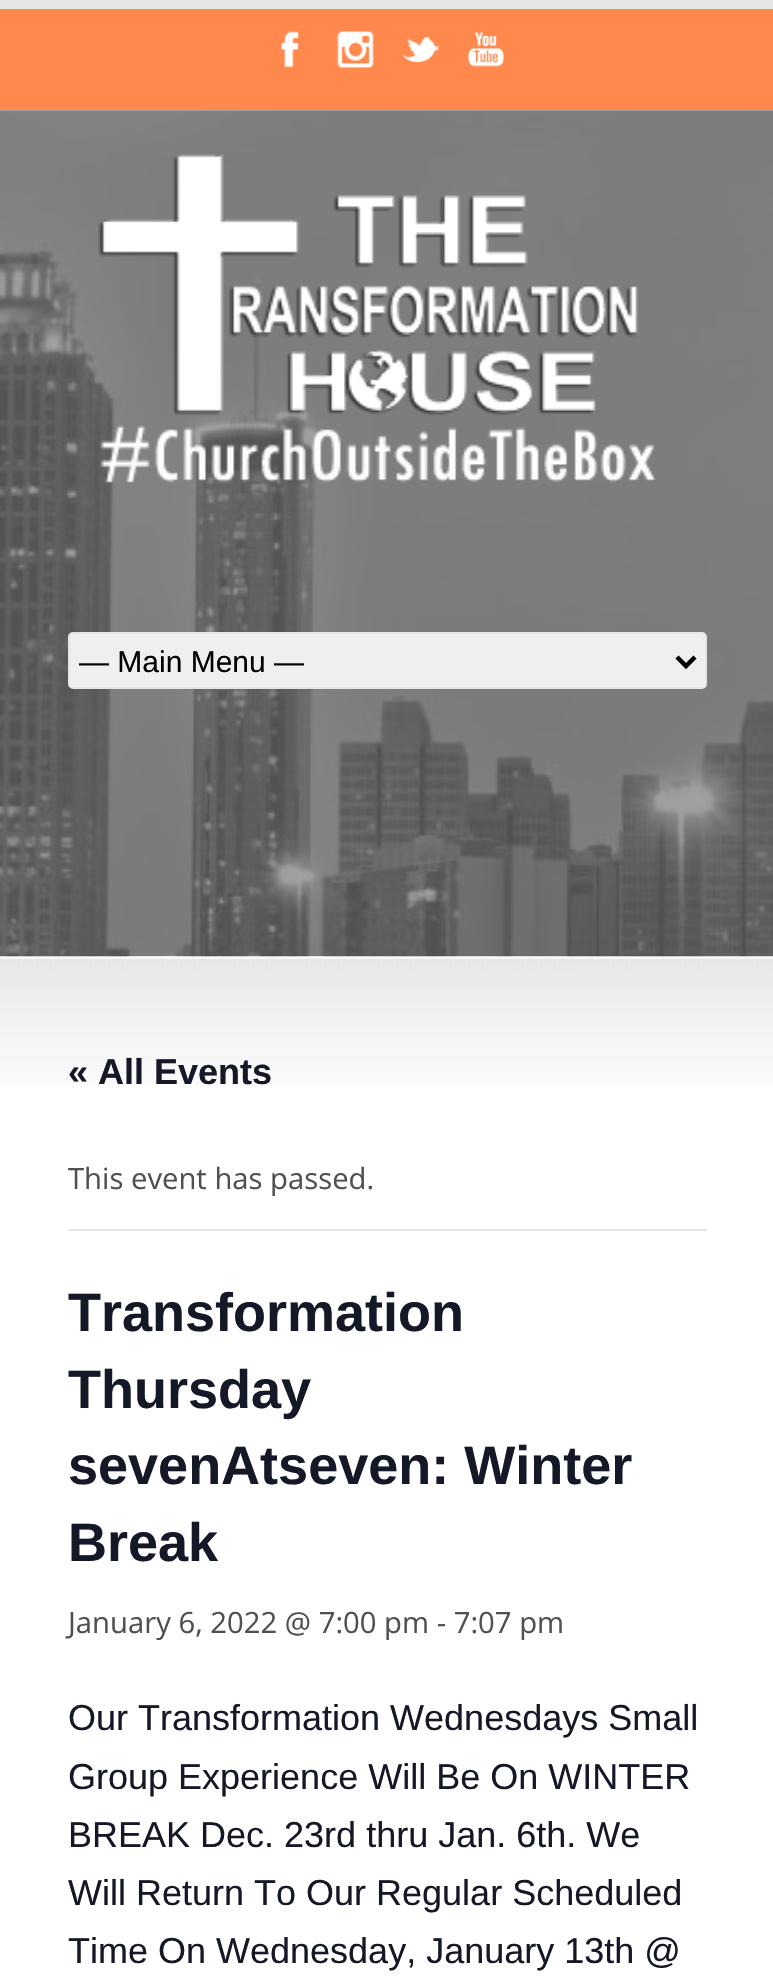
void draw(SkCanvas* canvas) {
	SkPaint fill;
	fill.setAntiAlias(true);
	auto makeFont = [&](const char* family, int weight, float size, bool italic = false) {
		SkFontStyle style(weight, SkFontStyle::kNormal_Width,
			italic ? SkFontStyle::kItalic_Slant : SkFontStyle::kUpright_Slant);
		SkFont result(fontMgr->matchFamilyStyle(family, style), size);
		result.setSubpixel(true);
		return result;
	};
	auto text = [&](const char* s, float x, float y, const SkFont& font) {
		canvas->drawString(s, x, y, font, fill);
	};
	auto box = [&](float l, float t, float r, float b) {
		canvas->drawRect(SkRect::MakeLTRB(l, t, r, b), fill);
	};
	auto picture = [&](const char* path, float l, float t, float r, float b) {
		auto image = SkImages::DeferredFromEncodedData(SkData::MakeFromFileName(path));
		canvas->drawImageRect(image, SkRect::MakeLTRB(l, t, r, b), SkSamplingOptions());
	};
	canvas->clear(0xFFFFFFFF);
	fill.setColor(0xFFFF884D);
	box(0, 9, 773, 110);
	fill.setColor(0xFFE5E5E5);
	box(0, 0, 773, 9);
	picture("image0.png", 281, 31, 299, 68);
	picture("image1.png", 337, 31, 374, 68);
	picture("image2.png", 402, 37, 439, 63);
	picture("image3.png", 468, 32, 504, 67);
	picture("image4.png", 0, 110, 773, 957);
	picture("image5.png", 98, 154, 656, 483);
	fill.setColor(0xFFEFEFEF);
	canvas->drawRoundRect(SkRect::MakeLTRB(69, 633, 706, 688), 4, 4, fill);
	fill.setStyle(SkPaint::kStroke_Style);
	fill.setStrokeWidth(2);
	fill.setColor(0xFFE5E5E5);
	canvas->drawRoundRect(SkRect::MakeLTRB(69, 633, 706, 688), 4, 4, fill);
	fill.setStrokeWidth(4.5f);
	fill.setColor(0xFF000000);
	canvas->drawPath(SkPathBuilder().moveTo(677, 657).lineTo(686, 666).lineTo(695, 657).detach(), fill);
	picture("image6.png", 0, 958, 773, 1084);
	fill.setStyle(SkPaint::kFill_Style);
	fill.setColor(0xFFE4E4E4);
	box(68, 1229, 707, 1231);
	canvas->save();
	canvas->clipRect(SkRect::MakeLTRB(79, 641, 668, 680));
	auto font1 = makeFont("Liberation Sans", 400, 30);
	fill.setColor(0xFF000000);
	text("— Main Menu —", 79, 672, font1);
	canvas->restore();
	auto font2 = makeFont("Liberation Sans", 700, 36);
	fill.setColor(0xFF141827);
	text("« All Events", 68, 1084, font2);
	auto font3 = makeFont("Open Sans", 400, 29.25f);
	fill.setColor(0xFF505050);
	text("This event has passed.", 68, 1189, font3);
	auto font4 = makeFont("Liberation Sans", 700, 54);
	fill.setColor(0xFF141827);
	text("Transformation", 68, 1331, font4);
	text("Thursday", 68, 1408, font4);
	text("sevenAtseven: Winter", 68, 1484, font4);
	text("Break", 68, 1561, font4);
	fill.setColor(0xFF505050);
	text("January 6, 2022 @ 7:00 pm - 7:07 pm", 68, 1633, font3);
	auto font5 = makeFont("Liberation Sans", 400, 36);
	fill.setColor(0xFF141827);
	text("Our Transformation Wednesdays Small", 68, 1730, font5);
	text("Group Experience Will Be On WINTER", 68, 1789, font5);
	text("BREAK Dec. 23rd thru Jan. 6th. We", 68, 1847, font5);
	text("Will Return To Our Regular Scheduled", 68, 1905, font5);
	text("Time On Wednesday, January 13th @", 68, 1963, font5);
}
